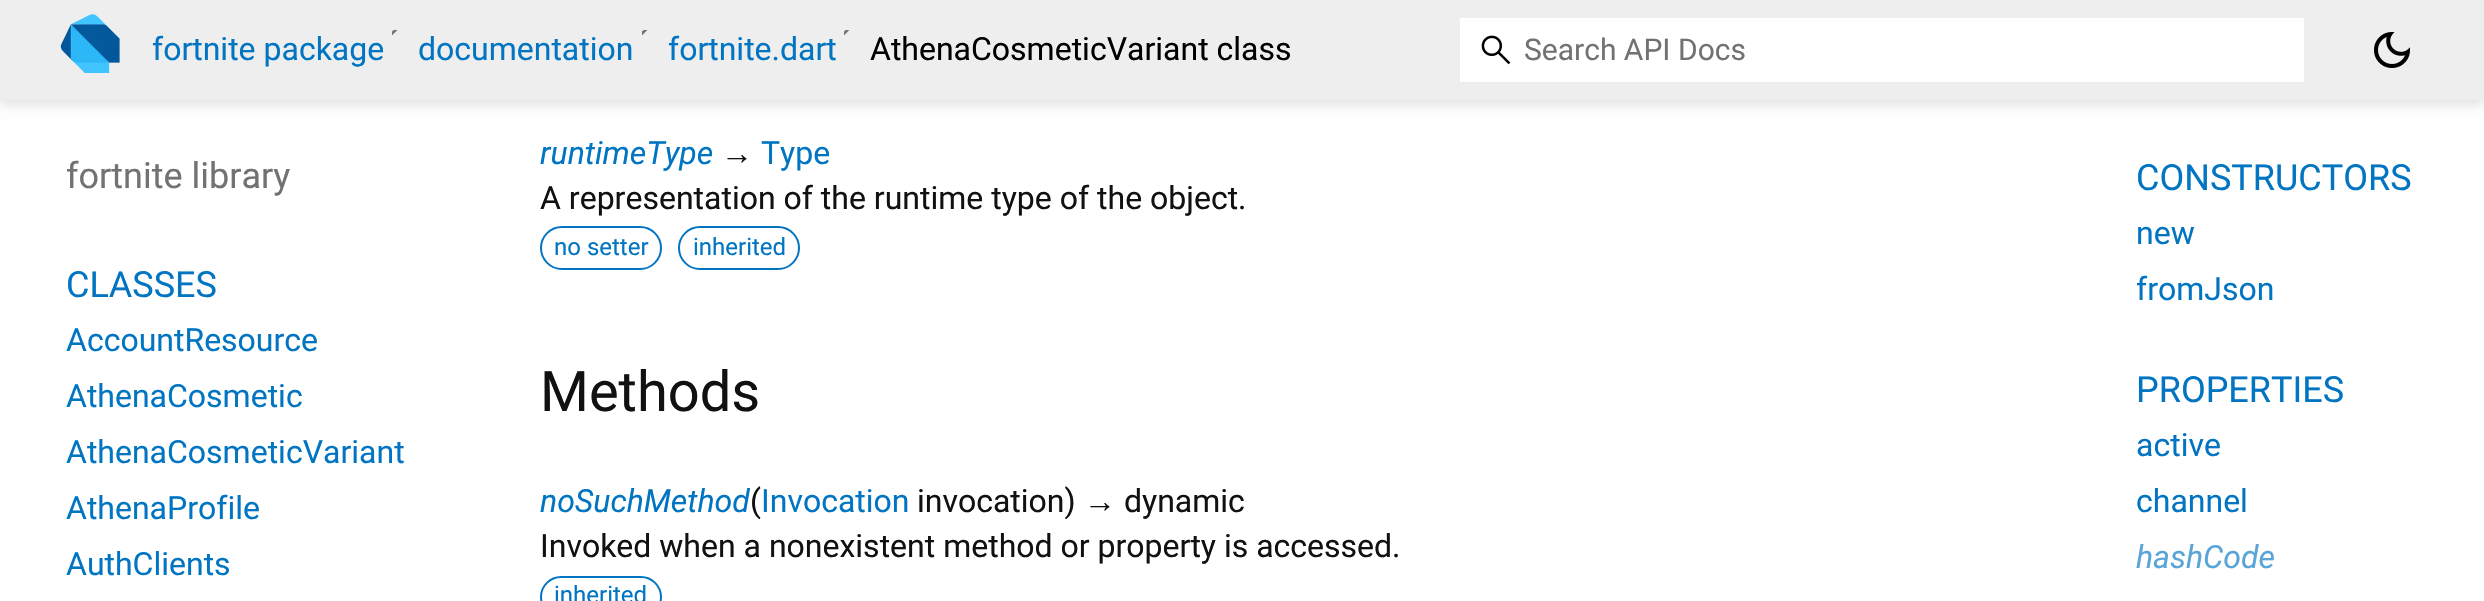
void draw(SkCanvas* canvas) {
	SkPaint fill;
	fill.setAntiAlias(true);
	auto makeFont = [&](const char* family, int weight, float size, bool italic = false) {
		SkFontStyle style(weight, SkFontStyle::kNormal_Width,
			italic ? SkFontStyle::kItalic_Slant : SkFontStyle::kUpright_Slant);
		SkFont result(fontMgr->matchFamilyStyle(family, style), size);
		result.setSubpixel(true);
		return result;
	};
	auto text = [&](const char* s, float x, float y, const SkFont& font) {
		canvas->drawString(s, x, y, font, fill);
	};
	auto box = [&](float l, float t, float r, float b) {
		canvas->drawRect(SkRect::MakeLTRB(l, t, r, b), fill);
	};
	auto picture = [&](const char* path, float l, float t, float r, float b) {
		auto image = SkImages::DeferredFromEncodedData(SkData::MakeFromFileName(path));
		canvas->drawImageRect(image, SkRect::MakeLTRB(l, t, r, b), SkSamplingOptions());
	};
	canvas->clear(0xFFFFFFFF);
	fill.setColor(0x1A000000);
	fill.setMaskFilter(SkMaskFilter::MakeBlur(kNormal_SkBlurStyle, 5));
	canvas->drawRect(SkRect::MakeLTRB(0, 6, 2484, 106), fill);
	fill.setMaskFilter(nullptr);
	fill.setColor(0xFFEEEEEE);
	box(0, 0, 2484, 100);
	picture("image0.png", 60, 14, 120, 73);
	picture("image1.png", 392, 30, 398, 36);
	picture("image1.png", 642, 30, 648, 36);
	picture("image1.png", 844, 30, 850, 36);
	fill.setColor(0xFFFFFFFF);
	box(1460, 18, 2304, 82);
	picture("image2.png", 1481, 35, 1511, 65);
	picture("image3.png", 2374, 32, 2410, 68);
	fill.setStyle(SkPaint::kStroke_Style);
	fill.setStrokeWidth(2);
	fill.setColor(0xFF0175C2);
	canvas->drawRoundRect(SkRect::MakeLTRB(541, 227, 661, 269), 21, 21, fill);
	canvas->drawRoundRect(SkRect::MakeLTRB(679, 227, 799, 269), 21, 21, fill);
	canvas->drawRoundRect(SkRect::MakeLTRB(541, 577, 661, 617), 20, 20, fill);
	auto font1 = makeFont("Roboto", 400, 32);
	fill.setStyle(SkPaint::kFill_Style);
	text("fortnite package", 152, 60, font1);
	text("documentation", 418, 60, font1);
	text("fortnite.dart", 668, 60, font1);
	fill.setColor(0xFF000000);
	text("AthenaCosmeticVariant class", 870, 60, font1);
	auto font2 = makeFont("Roboto", 400, 30);
	fill.setColor(0xFF727272);
	text("Search API Docs", 1524, 60, font2);
	auto font3 = makeFont("Roboto", 400, 36);
	text("fortnite library", 66, 188, font3);
	fill.setColor(0xFF0175C2);
	text("CLASSES", 66, 297, font3);
	text("AccountResource", 66, 351, font1);
	text("AthenaCosmetic", 66, 407, font1);
	text("AthenaCosmeticVariant", 66, 463, font1);
	text("AthenaProfile", 66, 519, font1);
	text("AuthClients", 66, 575, font1);
	auto font4 = makeFont("Roboto", 400, 32, true);
	text("runtimeType", 540, 164, font4);
	auto font5 = makeFont("Liberation Sans", 400, 32);
	fill.setColor(0xFF111111);
	text("→", 721, 164, font5);
	fill.setColor(0xFF0175C2);
	text("Type", 761, 164, font1);
	fill.setColor(0xFF111111);
	text("A representation of the runtime type of the object.", 540, 209, font1);
	auto font6 = makeFont("Roboto", 400, 24);
	fill.setColor(0xFF0175C2);
	text("no setter", 554, 255, font6);
	text("inherited", 693, 255, font6);
	auto font7 = makeFont("Roboto", 400, 56);
	fill.setColor(0xFF111111);
	text("Methods", 540, 411, font7);
	fill.setColor(0xFF0175C2);
	text("noSuchMethod", 540, 512, font4);
	fill.setColor(0xFF111111);
	text("(", 750, 512, font1);
	fill.setColor(0xFF0175C2);
	text("Invocation", 761, 512, font1);
	fill.setColor(0xFF111111);
	text("invocation)", 917, 512, font1);
	text("→", 1084, 512, font5);
	text("dynamic", 1124, 512, font1);
	text("Invoked when a nonexistent method or property is accessed.", 540, 557, font1);
	fill.setColor(0xFF0175C2);
	text("inherited", 554, 603, font6);
	text("CONSTRUCTORS", 2136, 190, font3);
	text("new", 2136, 244, font1);
	text("fromJson", 2136, 300, font1);
	text("PROPERTIES", 2136, 402, font3);
	text("active", 2136, 456, font1);
	text("channel", 2136, 512, font1);
	fill.setColor(0xFF5AA5D7);
	text("hashCode", 2136, 568, font4);
}
